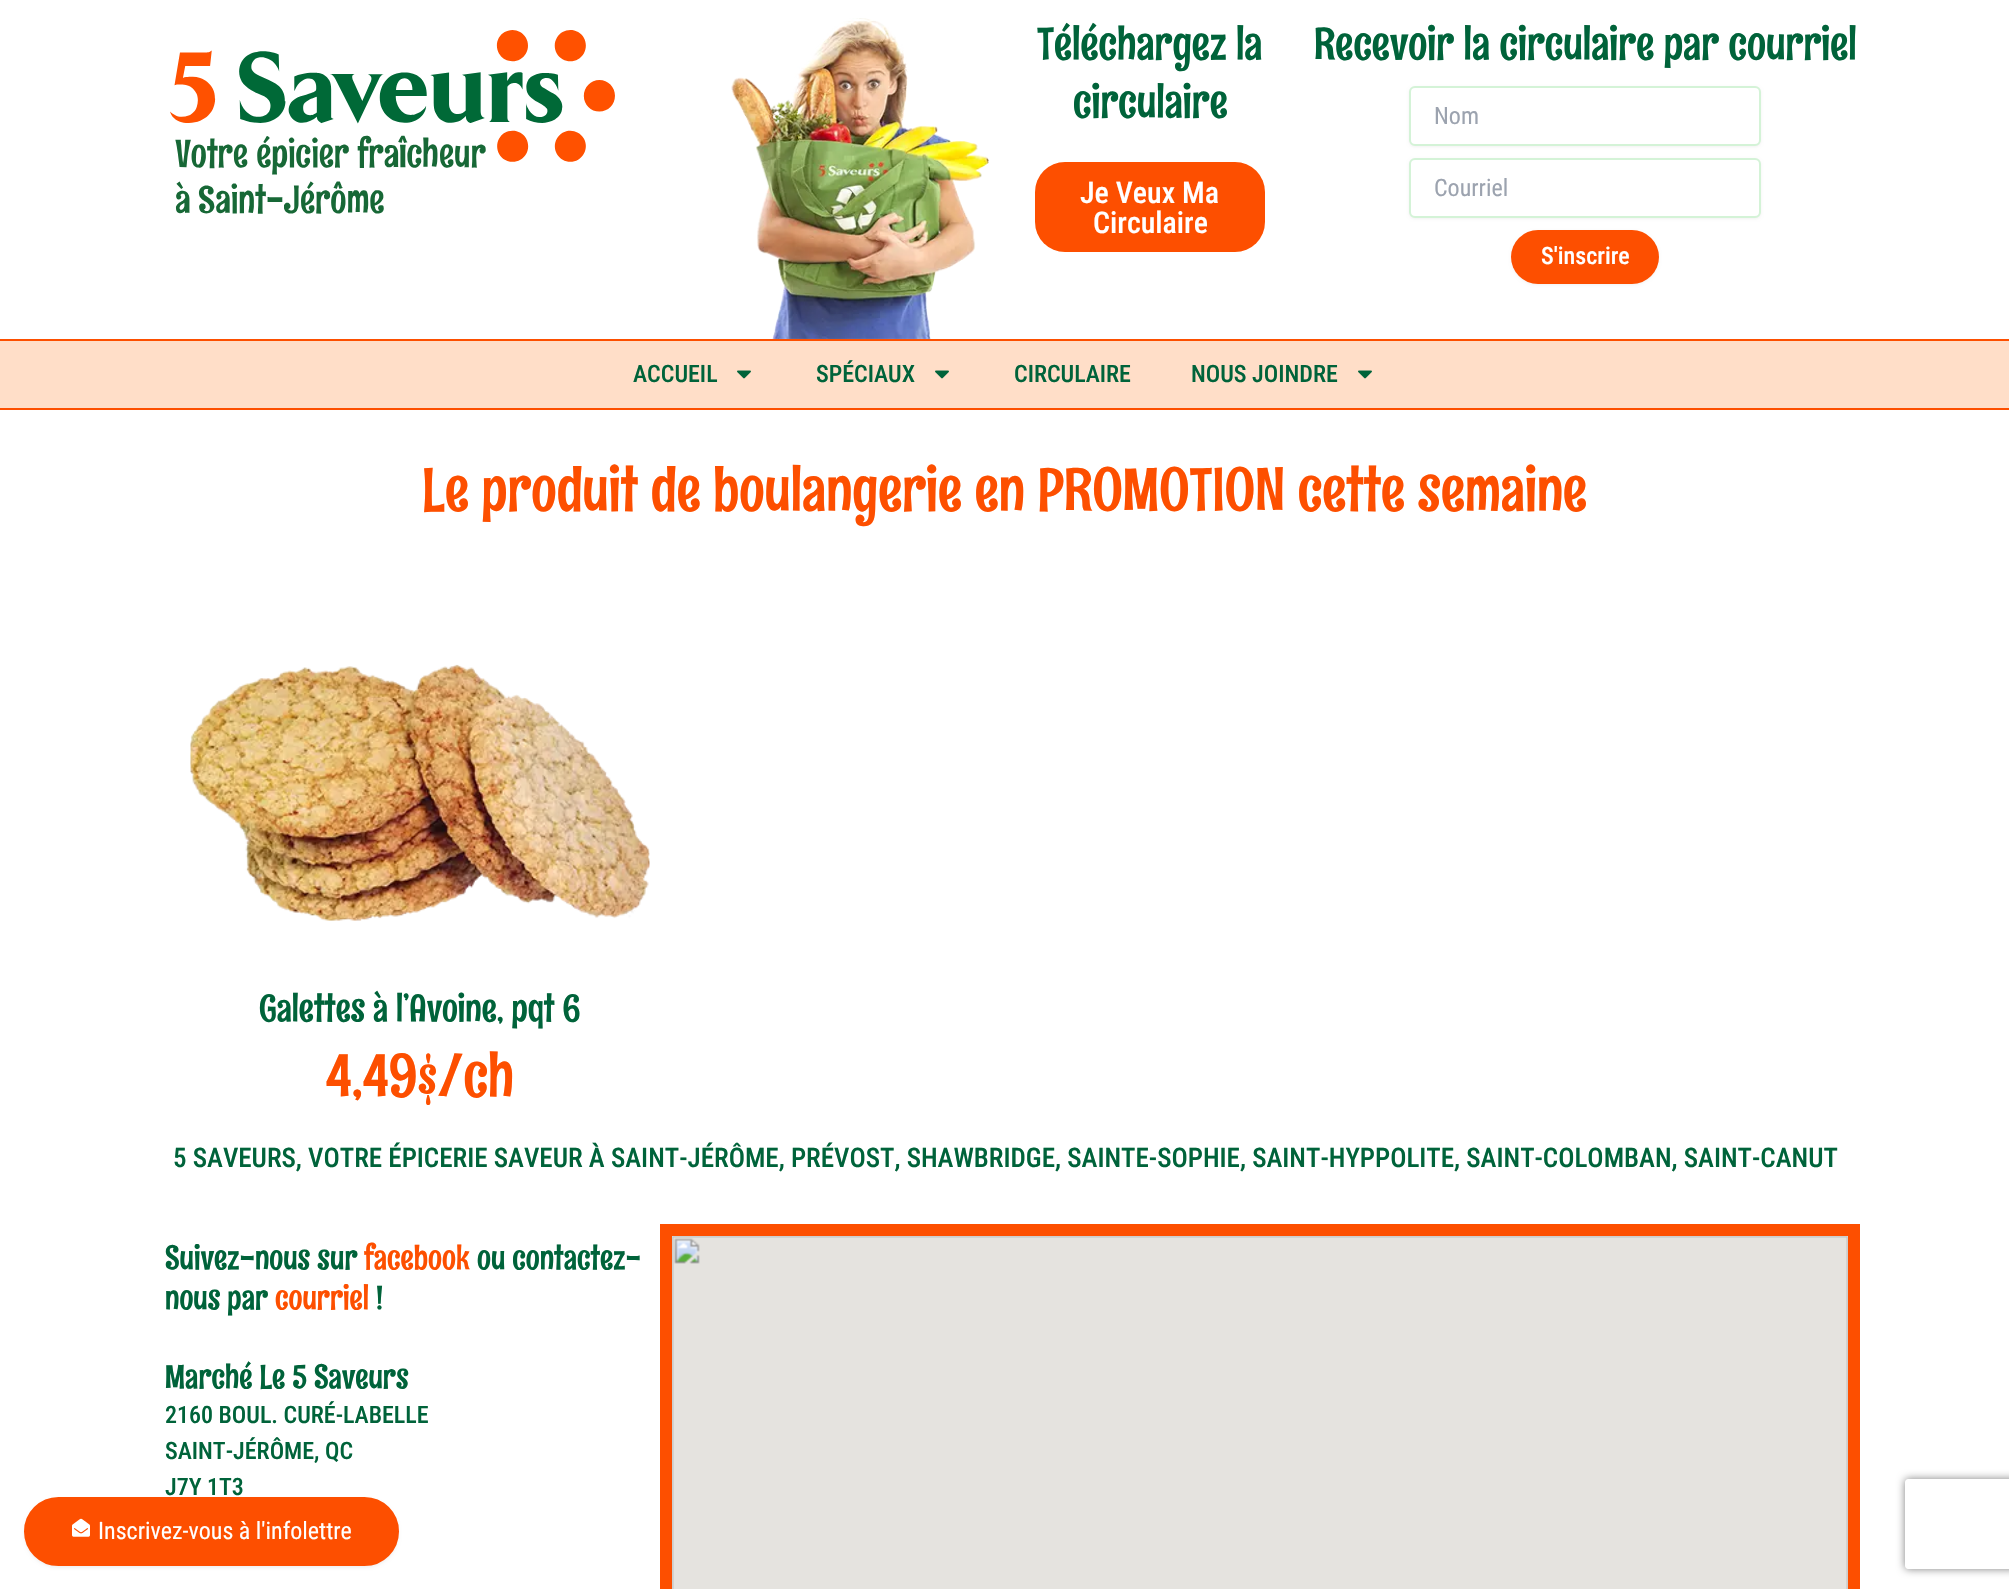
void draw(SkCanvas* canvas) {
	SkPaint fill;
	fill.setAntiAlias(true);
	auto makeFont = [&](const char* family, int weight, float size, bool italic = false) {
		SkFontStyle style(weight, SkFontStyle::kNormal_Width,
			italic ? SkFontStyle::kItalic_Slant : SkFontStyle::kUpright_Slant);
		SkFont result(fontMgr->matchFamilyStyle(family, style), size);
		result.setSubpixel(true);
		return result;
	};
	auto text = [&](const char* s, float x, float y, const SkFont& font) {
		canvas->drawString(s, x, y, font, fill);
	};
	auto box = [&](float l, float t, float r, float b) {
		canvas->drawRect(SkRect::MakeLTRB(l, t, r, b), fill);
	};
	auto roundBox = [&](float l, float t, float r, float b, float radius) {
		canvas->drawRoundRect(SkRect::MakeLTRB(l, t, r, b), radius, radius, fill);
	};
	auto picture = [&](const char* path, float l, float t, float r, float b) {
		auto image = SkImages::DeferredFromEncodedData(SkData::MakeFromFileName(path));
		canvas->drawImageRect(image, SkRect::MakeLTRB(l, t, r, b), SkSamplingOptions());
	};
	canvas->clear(0xFFFFFFFF);
	picture("image0.png", 170, 30, 615, 214);
	picture("image1.png", 731, 18, 989, 339);
	fill.setColor(0xFFFD4F00);
	roundBox(1035, 162, 1265, 252, 30);
	fill.setColor(0x0D000000);
	fill.setMaskFilter(SkMaskFilter::MakeBlur(kNormal_SkBlurStyle, 1.5f));
	canvas->drawRoundRect(SkRect::MakeLTRB(1409, 87, 1761, 147), 6, 6, fill);
	fill.setMaskFilter(nullptr);
	fill.setColor(0xFFFFFFFF);
	canvas->drawRoundRect(SkRect::MakeLTRB(1410, 87, 1760, 145), 5, 5, fill);
	fill.setStyle(SkPaint::kStroke_Style);
	fill.setStrokeWidth(2);
	fill.setColor(0xFFD4F3D7);
	canvas->drawRoundRect(SkRect::MakeLTRB(1410, 87, 1760, 145), 5, 5, fill);
	fill.setStyle(SkPaint::kFill_Style);
	fill.setColor(0x0D000000);
	fill.setMaskFilter(SkMaskFilter::MakeBlur(kNormal_SkBlurStyle, 1.5f));
	canvas->drawRoundRect(SkRect::MakeLTRB(1409, 159, 1761, 219), 6, 6, fill);
	fill.setMaskFilter(nullptr);
	fill.setColor(0xFFFFFFFF);
	canvas->drawRoundRect(SkRect::MakeLTRB(1410, 159, 1760, 217), 5, 5, fill);
	fill.setStyle(SkPaint::kStroke_Style);
	fill.setColor(0xFFD4F3D7);
	canvas->drawRoundRect(SkRect::MakeLTRB(1410, 159, 1760, 217), 5, 5, fill);
	fill.setStyle(SkPaint::kFill_Style);
	fill.setColor(0x0D000000);
	fill.setMaskFilter(SkMaskFilter::MakeBlur(kNormal_SkBlurStyle, 1.5f));
	canvas->drawRoundRect(SkRect::MakeLTRB(1511, 231, 1659, 285), 27, 27, fill);
	fill.setMaskFilter(nullptr);
	fill.setColor(0xFFFD4F00);
	roundBox(1511, 230, 1659, 284, 27);
	canvas->save();
	canvas->clipPath(SkPathBuilder(SkPathFillType::kEvenOdd).moveTo(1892, 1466).lineTo(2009, 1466).lineTo(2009, 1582).lineTo(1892, 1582).close().moveTo(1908, 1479).lineTo(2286, 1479).cubicTo(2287.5f, 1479, 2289, 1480.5f, 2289, 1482).lineTo(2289, 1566).cubicTo(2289, 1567.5f, 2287.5f, 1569, 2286, 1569).lineTo(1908, 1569).cubicTo(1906.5f, 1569, 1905, 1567.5f, 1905, 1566).lineTo(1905, 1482).cubicTo(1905, 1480.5f, 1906.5f, 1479, 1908, 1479).close().detach(), true);
	fill.setColor(0xFF808080);
	fill.setMaskFilter(SkMaskFilter::MakeBlur(kNormal_SkBlurStyle, 4));
	canvas->drawRoundRect(SkRect::MakeLTRB(1905, 1479, 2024, 1569), 3, 3, fill);
	fill.setMaskFilter(nullptr);
	canvas->restore();
	fill.setColor(0xFFFFDEC8);
	box(0, 341, 2009, 408);
	fill.setColor(0xFFFD4F00);
	box(0, 339, 2009, 341);
	box(0, 408, 2009, 410);
	picture("image2.png", 737, 370, 751, 379);
	picture("image2.png", 935, 370, 949, 379);
	picture("image2.png", 1358, 370, 1372, 379);
	picture("image3.png", 190, 664, 650, 921);
	fill.setStyle(SkPaint::kStroke_Style);
	fill.setStrokeWidth(12);
	canvas->drawRect(SkRect::MakeLTRB(666, 1230, 1854, 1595), fill);
	picture("image4.png", 672, 1236, 1848, 1589);
	fill.setStyle(SkPaint::kFill_Style);
	fill.setColor(0x0D000000);
	fill.setMaskFilter(SkMaskFilter::MakeBlur(kNormal_SkBlurStyle, 1.5f));
	canvas->drawRoundRect(SkRect::MakeLTRB(24, 1499, 399, 1568), 34.5f, 34.5f, fill);
	fill.setMaskFilter(nullptr);
	fill.setColor(0xFFFD4F00);
	canvas->drawRoundRect(SkRect::MakeLTRB(25.5f, 1498.5f, 397.5f, 1564.5f), 33, 33, fill);
	fill.setStyle(SkPaint::kStroke_Style);
	fill.setStrokeWidth(3);
	canvas->drawRoundRect(SkRect::MakeLTRB(25.5f, 1498.5f, 397.5f, 1564.5f), 33, 33, fill);
	picture("image5.png", 72, 1518, 90, 1537);
	auto font1 = makeFont("Rum Raisin", 400, 45);
	fill.setStyle(SkPaint::kFill_Style);
	fill.setColor(0xFF00633A);
	text("Téléchargez la", 1037, 59, font1);
	text("circulaire", 1073, 117, font1);
	auto font2 = makeFont("Roboto Condensed", 500, 30);
	fill.setColor(0xFFFFFFFF);
	text("Je Veux Ma", 1080, 203, font2);
	text("Circulaire", 1093, 233, font2);
	fill.setColor(0xFF00633A);
	text("Recevoir la circulaire par courriel", 1314, 59, font1);
	auto font3 = makeFont("Roboto Condensed", 400, 24);
	fill.setColor(0xFF9CA3AF);
	text("Nom", 1434, 124, font3);
	text("Courriel", 1434, 196, font3);
	auto font4 = makeFont("Roboto Condensed", 500, 24);
	fill.setColor(0xFFFFFFFF);
	text("S'inscrire", 1541, 264, font4);
	fill.setColor(0xFF00633A);
	text("ACCUEIL", 633, 382, font4);
	text("SPÉCIAUX", 816, 382, font4);
	text("CIRCULAIRE", 1014, 382, font4);
	text("NOUS JOINDRE", 1191, 382, font4);
	auto font5 = makeFont("Rum Raisin", 400, 60);
	fill.setColor(0xFFFD4F00);
	text("Le produit de boulangerie en PROMOTION cette semaine", 422, 510, font5);
	auto font6 = makeFont("Rum Raisin", 400, 37.5f);
	fill.setColor(0xFF00633A);
	text("Galettes à l’Avoine, pqt 6", 259, 1021, font6);
	fill.setColor(0xFFFD4F00);
	text("4,49$/ch", 326, 1096, font5);
	auto font7 = makeFont("Roboto Condensed", 500, 27);
	fill.setColor(0xFF00633A);
	text("5 SAVEURS, VOTRE ÉPICERIE SAVEUR À SAINT-JÉRÔME, PRÉVOST, SHAWBRIDGE, SAINTE-SOPHIE, SAINT-HYPPOLITE, SAINT-COLOMBAN, SAINT-CANUT", 173, 1167, font7);
	auto font8 = makeFont("Rum Raisin", 400, 33);
	text("Suivez-nous sur", 165, 1269, font8);
	fill.setColor(0xFFFD4F00);
	text("facebook", 364, 1269, font8);
	fill.setColor(0xFF00633A);
	text("ou contactez-", 477, 1269, font8);
	text("nous par", 165, 1309, font8);
	fill.setColor(0xFFFD4F00);
	text("courriel", 275, 1309, font8);
	fill.setColor(0xFF00633A);
	text("!", 376, 1309, font8);
	text("Marché Le 5 Saveurs", 165, 1388, font8);
	text("2160 BOUL. CURÉ-LABELLE", 165, 1423, font4);
	text("SAINT-JÉRÔME, QC", 165, 1459, font4);
	text("J7Y 1T3", 165, 1495, font4);
	fill.setColor(0xFFFFFFFF);
	text("Inscrivez-vous à l'infolettre", 98, 1539, font3);
}
